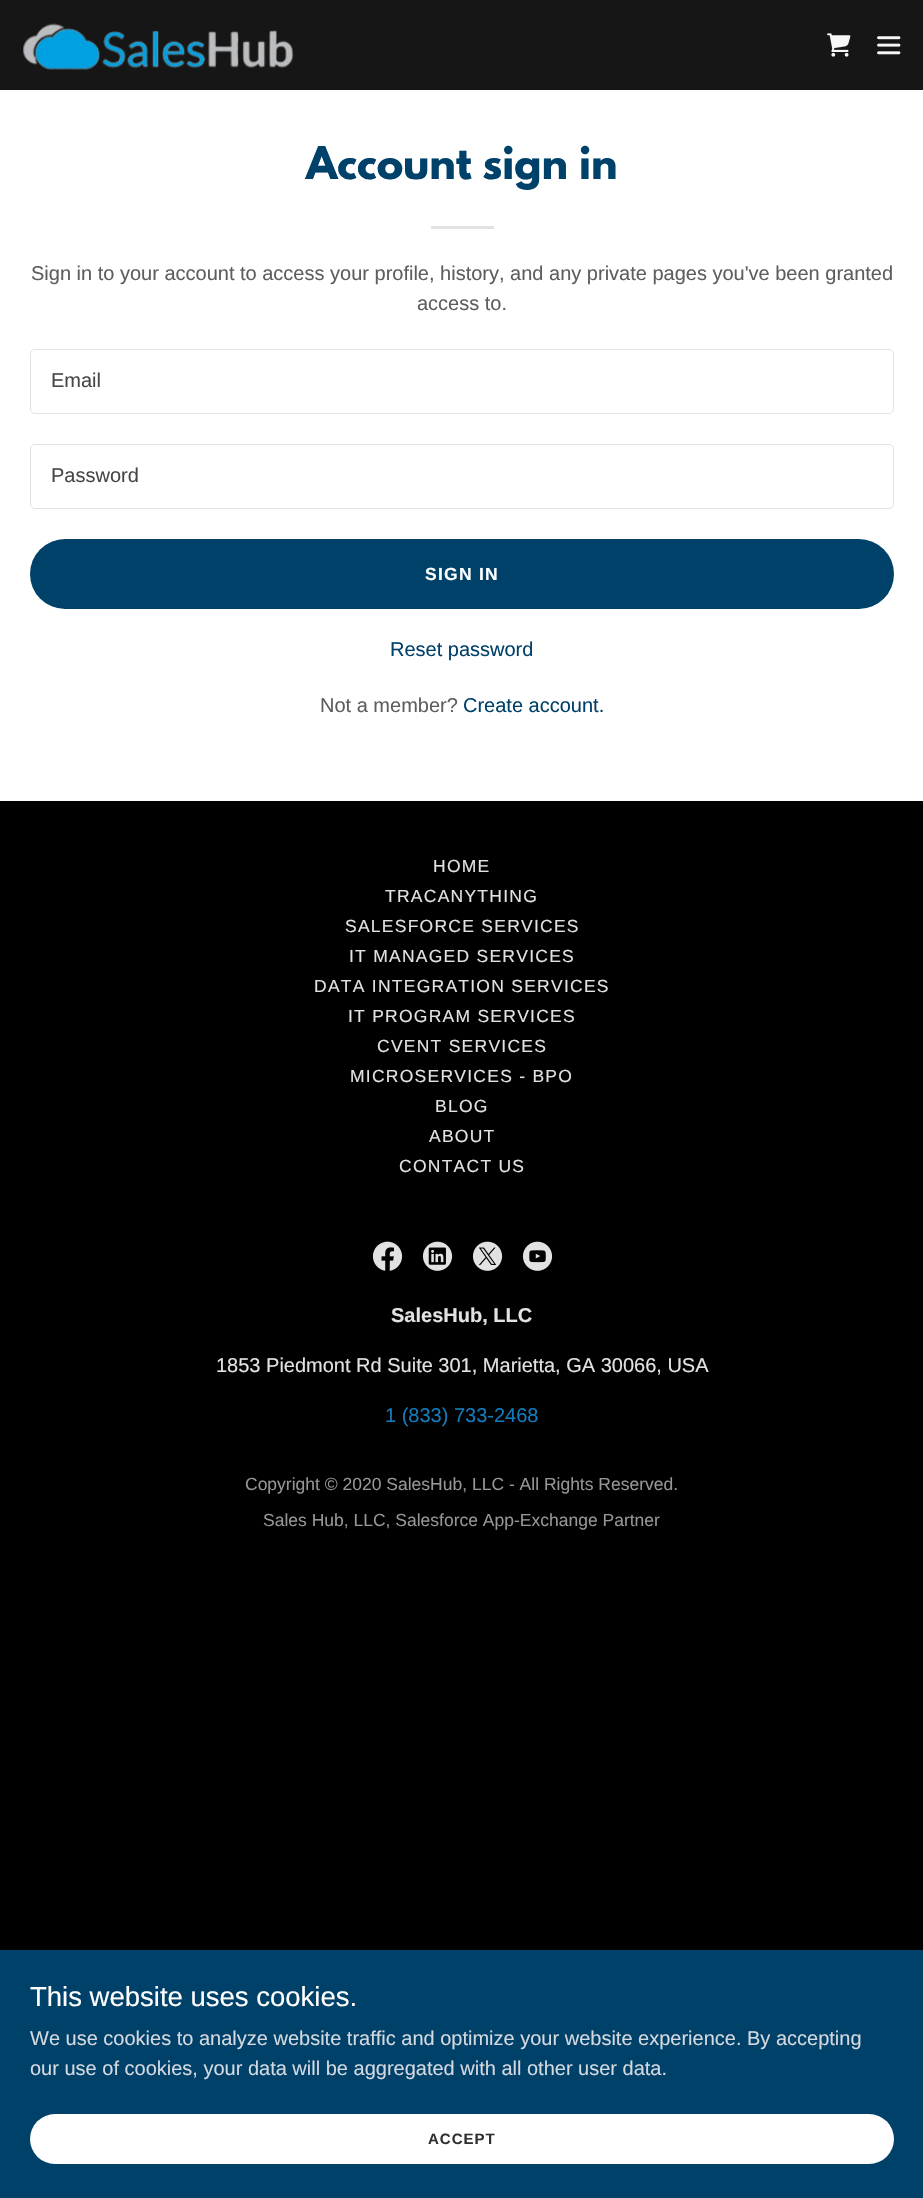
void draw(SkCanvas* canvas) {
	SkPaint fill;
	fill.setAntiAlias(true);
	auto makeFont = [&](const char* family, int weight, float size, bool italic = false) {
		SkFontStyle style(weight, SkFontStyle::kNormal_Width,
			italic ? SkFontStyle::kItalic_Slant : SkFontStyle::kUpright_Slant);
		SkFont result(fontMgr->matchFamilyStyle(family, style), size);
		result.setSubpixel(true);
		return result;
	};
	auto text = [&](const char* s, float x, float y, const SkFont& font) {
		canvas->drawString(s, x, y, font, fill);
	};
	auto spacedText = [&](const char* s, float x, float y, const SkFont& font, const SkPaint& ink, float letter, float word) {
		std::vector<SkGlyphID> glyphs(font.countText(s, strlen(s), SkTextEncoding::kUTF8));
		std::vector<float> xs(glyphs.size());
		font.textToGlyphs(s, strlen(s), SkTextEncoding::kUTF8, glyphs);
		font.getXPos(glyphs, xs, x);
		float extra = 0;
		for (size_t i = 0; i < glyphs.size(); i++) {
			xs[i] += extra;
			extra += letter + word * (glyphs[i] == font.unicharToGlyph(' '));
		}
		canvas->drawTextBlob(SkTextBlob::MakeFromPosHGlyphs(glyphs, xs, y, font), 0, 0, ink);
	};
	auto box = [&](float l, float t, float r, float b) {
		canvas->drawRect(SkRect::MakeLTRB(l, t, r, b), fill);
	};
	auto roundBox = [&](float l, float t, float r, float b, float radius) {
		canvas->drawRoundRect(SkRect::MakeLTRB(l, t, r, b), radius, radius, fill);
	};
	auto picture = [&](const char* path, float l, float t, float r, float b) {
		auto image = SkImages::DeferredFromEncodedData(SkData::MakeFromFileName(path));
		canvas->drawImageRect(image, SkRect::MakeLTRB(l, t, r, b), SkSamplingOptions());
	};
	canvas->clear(0xFF000000);
	fill.setColor(0xFF161616);
	box(0, 0, 923, 90);
	picture("image0.png", 23, 23, 294, 70);
	picture("image1.png", 827, 33, 851, 57);
	picture("image2.png", 877, 36, 901, 55);
	fill.setColor(0xFFFFFFFF);
	box(0, 90, 923, 801);
	fill.setColor(0xFFE2E2E2);
	box(431, 226, 494, 229);
	fill.setStyle(SkPaint::kStroke_Style);
	fill.setStrokeWidth(1);
	canvas->drawRoundRect(SkRect::MakeLTRB(30.5f, 349.5f, 893.5f, 413.5f), 4.5f, 4.5f, fill);
	canvas->drawRoundRect(SkRect::MakeLTRB(30.5f, 444.5f, 893.5f, 508.5f), 4.5f, 4.5f, fill);
	fill.setStyle(SkPaint::kFill_Style);
	fill.setColor(0xFF00416A);
	roundBox(30, 539, 894, 609, 35);
	picture("image3.png", 372, 1241, 403, 1271);
	picture("image4.png", 422, 1241, 453, 1271);
	picture("image5.png", 472, 1241, 503, 1271);
	picture("image6.png", 522, 1241, 553, 1271);
	box(0, 1950, 923, 2198);
	fill.setColor(0xFFFFFFFF);
	roundBox(30, 2114, 894, 2164, 25);
	auto font1 = makeFont("League Spartan", 700, 40);
	fill.setColor(0xFF00416A);
	text("Account sign in", 306, 179, font1);
	auto font2 = makeFont("Liberation Sans", 400, 20);
	fill.setColor(0xFF5E5E5E);
	text("Sign in to your account to access your profile, history, and any private pages you've been granted", 31, 280, font2);
	text("access to.", 417, 310, font2);
	fill.setColor(0xFF474747);
	text("Email", 51, 387, font2);
	text("Password", 51, 482, font2);
	auto font3 = makeFont("Liberation Sans", 700, 17.5f);
	fill.setColor(0xFFFFFFFF);
	spacedText("SIGN IN", 425, 580, font3, fill, 1.25f, 0);
	fill.setColor(0xFF00416A);
	text("Reset password", 390, 656, font2);
	fill.setColor(0xFF5E5E5E);
	text("Not a member?", 320, 712, font2);
	fill.setColor(0xFF00416A);
	text("Create account.", 463, 712, font2);
	auto font4 = makeFont("Liberation Sans", 400, 17.5f);
	fill.setColor(0xFFE2E2E2);
	spacedText("HOME", 433, 872, font4, fill, 1.25f, 0);
	spacedText("TRACANYTHING", 385, 902, font4, fill, 1.25f, 0);
	spacedText("SALESFORCE SERVICES", 345, 932, font4, fill, 1.25f, 0);
	spacedText("IT MANAGED SERVICES", 349, 962, font4, fill, 1.25f, 0);
	spacedText("DATA INTEGRATION SERVICES", 314, 992, font4, fill, 1.25f, 0);
	spacedText("IT PROGRAM SERVICES", 348, 1022, font4, fill, 1.25f, 0);
	spacedText("CVENT SERVICES", 377, 1052, font4, fill, 1.25f, 0);
	spacedText("MICROSERVICES - BPO", 350, 1082, font4, fill, 1.25f, 0);
	spacedText("BLOG", 435, 1112, font4, fill, 1.25f, 0);
	spacedText("ABOUT", 429, 1142, font4, fill, 1.25f, 0);
	spacedText("CONTACT US", 399, 1172, font4, fill, 1.25f, 0);
	auto font5 = makeFont("Liberation Sans", 700, 20);
	text("SalesHub, LLC", 391, 1322, font5);
	text("1853 Piedmont Rd Suite 301, Marietta, GA 30066, USA", 216, 1372, font2);
	fill.setColor(0xFF147ABA);
	text("1 (833) 733-2468", 385, 1422, font2);
	fill.setColor(0xFF969696);
	text("Copyright © 2020 SalesHub, LLC - All Rights Reserved.", 245, 1490, font4);
	text("Sales Hub, LLC, Salesforce App-Exchange Partner", 263, 1526, font4);
	auto font6 = makeFont("Liberation Sans", 400, 27.5f);
	fill.setColor(0xFFFFFFFF);
	text("This website uses cookies.", 30, 2006, font6);
	fill.setColor(0xFFD4D8DF);
	text("We use cookies to analyze website traffic and optimize your website experience. By accepting", 30, 2045, font2);
	text("our use of cookies, your data will be aggregated with all other user data.", 30, 2075, font2);
	auto font7 = makeFont("Liberation Sans", 700, 15);
	fill.setColor(0xFF303030);
	spacedText("ACCEPT", 428, 2144, font7, fill, 1, 0);
}
